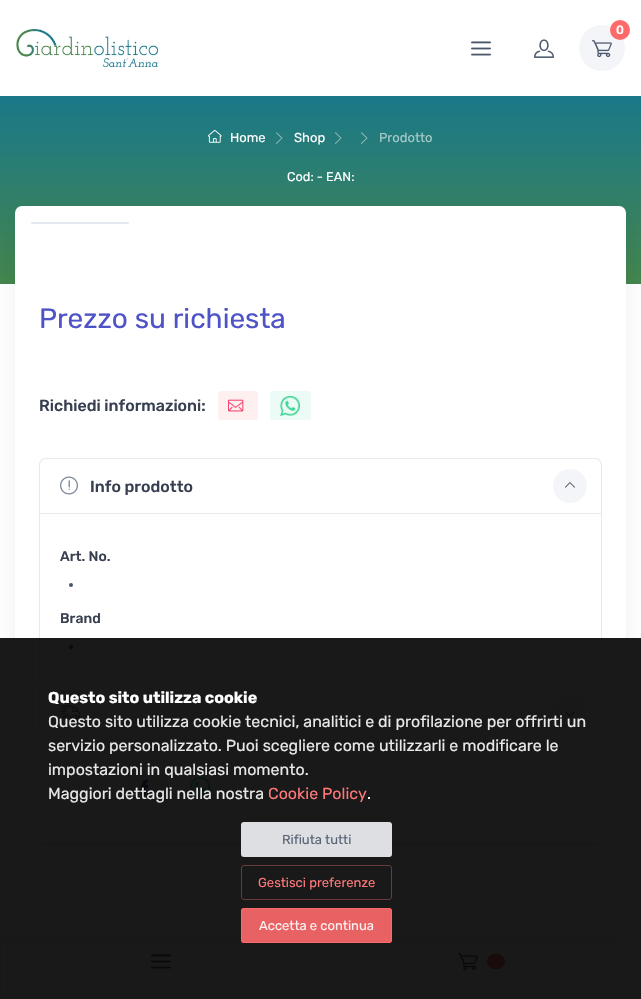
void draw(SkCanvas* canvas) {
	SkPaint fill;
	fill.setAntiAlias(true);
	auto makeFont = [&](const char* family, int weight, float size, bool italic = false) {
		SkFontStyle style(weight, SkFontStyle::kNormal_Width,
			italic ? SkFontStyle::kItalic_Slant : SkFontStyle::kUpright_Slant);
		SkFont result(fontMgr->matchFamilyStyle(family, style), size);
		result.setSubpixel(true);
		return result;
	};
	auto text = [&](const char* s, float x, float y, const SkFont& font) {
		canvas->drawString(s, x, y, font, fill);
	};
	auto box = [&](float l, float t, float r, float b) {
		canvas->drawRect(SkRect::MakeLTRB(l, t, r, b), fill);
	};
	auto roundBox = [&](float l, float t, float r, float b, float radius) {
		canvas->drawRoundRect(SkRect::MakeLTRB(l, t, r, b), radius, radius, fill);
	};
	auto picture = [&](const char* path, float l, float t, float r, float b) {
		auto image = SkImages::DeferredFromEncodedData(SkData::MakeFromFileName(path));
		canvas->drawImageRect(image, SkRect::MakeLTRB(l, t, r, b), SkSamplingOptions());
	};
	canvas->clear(0xFFFFFFFF);
	picture("image0.png", 16, 29, 158, 67);
	fill.setColor(0xFFF3F5F9);
	canvas->drawCircle(602, 48, 23, fill);
	fill.setColor(0xFFFE696A);
	canvas->drawCircle(620, 30, 10, fill);
	picture("image1.png", 592, 40, 612, 58);
	picture("image2.png", 471, 41, 491, 56);
	picture("image3.png", 534, 39, 554, 58);
	{
		const SkColor colors[] = {0xFF1A7889, 0xFF44864D};
		const float stops[] = {0, 1};
		const SkPoint ends[] = {{321, 96}, {321, 284}};
		fill.setShader(SkGradientShader::MakeLinear(ends, colors, stops, 2, SkTileMode::kClamp));
		fill.setAlpha(255);
	}
	box(0, 96, 641, 284);
	picture("image4.png", 208, 129, 222, 143);
	picture("image5.png", 276, 132, 283, 144);
	picture("image5.png", 335, 132, 342, 144);
	picture("image5.png", 361, 132, 368, 144);
	fill.setShader(nullptr);
	fill.setColor(0x1A000000);
	fill.setMaskFilter(SkMaskFilter::MakeBlur(kNormal_SkBlurStyle, 12));
	canvas->drawRoundRect(SkRect::MakeLTRB(21, 217, 620, 841), 1, 1, fill);
	fill.setMaskFilter(nullptr);
	fill.setColor(0xFFFFFFFF);
	roundBox(15, 206, 626, 842, 7);
	fill.setColor(0xFFE3E9EF);
	roundBox(31, 222, 129, 224, 1);
	fill.setColor(0xFFFFF0F0);
	roundBox(218, 391, 258, 420, 3);
	picture("image6.png", 228, 399, 244, 412);
	fill.setColor(0xFFECFBF5);
	roundBox(270, 391, 311, 420, 3);
	picture("image7.png", 280, 396, 300, 416);
	fill.setColor(0xFFE9E9E9);
	canvas->drawPath(SkPathBuilder(SkPathFillType::kEvenOdd).moveTo(46, 458).lineTo(595, 458).cubicTo(599, 458, 602, 461, 602, 465).lineTo(602, 685).lineTo(39, 685).lineTo(39, 465).cubicTo(39, 461, 42, 458, 46, 458).close().moveTo(46, 459).lineTo(595, 459).cubicTo(598, 459, 601, 462, 601, 465).lineTo(601, 685).lineTo(40, 685).lineTo(40, 465).cubicTo(40, 462, 43, 459, 46, 459).close().detach(), fill);
	box(40, 513, 601, 514);
	picture("image8.png", 60, 476, 78, 495);
	fill.setColor(0xFFF3F5F9);
	canvas->drawCircle(570, 486, 17, fill);
	picture("image9.png", 565, 482, 575, 488);
	fill.setColor(0xFF4B566B);
	canvas->drawCircle(71, 585, 2, fill);
	canvas->drawCircle(71, 647, 2, fill);
	fill.setStyle(SkPaint::kStroke_Style);
	fill.setStrokeWidth(1);
	fill.setColor(0xFFE9E9E9);
	canvas->drawPath(SkPathBuilder().moveTo(39.5f, 685.5f).lineTo(601.5f, 685.5f).lineTo(601.5f, 734).cubicTo(601.5f, 737.5f, 598.5f, 740.5f, 595, 740.5f).lineTo(46, 740.5f).cubicTo(42.5f, 740.5f, 39.5f, 737.5f, 39.5f, 734).close().detach(), fill);
	picture("image10.png", 60, 705, 80, 720);
	fill.setStyle(SkPaint::kFill_Style);
	fill.setColor(0xFFF3F5F9);
	canvas->drawPath(SkPathBuilder().moveTo(570, 730).cubicTo(560.5f, 730, 553, 722.5f, 553, 713).cubicTo(553, 703.5f, 560.5f, 696, 570, 696).cubicTo(579.5f, 696, 587, 703.5f, 587, 713).cubicTo(587, 722.5f, 579.5f, 730, 570, 730).close().detach(), fill);
	picture("image11.png", 565, 711, 575, 717);
	fill.setColor(0xFFEFF2F7);
	roundBox(127, 773, 168, 802, 3);
	picture("image12.png", 141, 779, 149, 796);
	fill.setColor(0xFFECFBF5);
	roundBox(180, 773, 221, 802, 3);
	picture("image7.png", 190, 777, 210, 797);
	fill.setColor(0x262B3445);
	fill.setMaskFilter(SkMaskFilter::MakeBlur(kNormal_SkBlurStyle, 16));
	canvas->drawRect(SkRect::MakeLTRB(-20, 942, 621, 999), fill);
	fill.setMaskFilter(nullptr);
	fill.setColor(0xFFFFFFFF);
	box(1, 943, 641, 999);
	fill.setColor(0xFFE3E9EF);
	box(0, 942, 641, 943);
	box(0, 943, 1, 999);
	picture("image2.png", 151, 954, 171, 969);
	box(321, 943, 322, 999);
	picture("image13.png", 458, 953, 478, 971);
	fill.setColor(0xFFFE696A);
	roundBox(487, 954, 505, 969, 7.5f);
	fill.setColor(0xE6000000);
	box(0, 638, 641, 999);
	fill.setColor(0xFFDDDFE3);
	roundBox(241, 822, 392, 857, 3);
	fill.setStyle(SkPaint::kStroke_Style);
	fill.setColor(0xFF693B3B);
	canvas->drawRoundRect(SkRect::MakeLTRB(241.5f, 865.5f, 391.5f, 899.5f), 2.5f, 2.5f, fill);
	fill.setStyle(SkPaint::kFill_Style);
	fill.setColor(0xE6FE696A);
	roundBox(241, 908, 392, 943, 3);
	fill.setStyle(SkPaint::kStroke_Style);
	canvas->drawRoundRect(SkRect::MakeLTRB(241.5f, 908.5f, 391.5f, 942.5f), 2.5f, 2.5f, fill);
	auto font1 = makeFont("Rubik", 500, 12);
	fill.setStyle(SkPaint::kFill_Style);
	fill.setColor(0xFFFFFFFF);
	text("0", 616, 34, font1);
	auto font2 = makeFont("Rubik", 400, 13);
	text("Home", 230, 142, font2);
	text("Shop", 294, 142, font2);
	fill.setColor(0xFFA7CACA);
	text("Prodotto", 379, 142, font2);
	auto font3 = makeFont("Rubik", 400, 12.75f);
	fill.setColor(0xFFFFFFFF);
	text("Cod: - EAN:", 287, 181, font3);
	auto font4 = makeFont("Rubik", 400, 28);
	fill.setColor(0xFF4E54C8);
	text("Prezzo su richiesta", 39, 328, font4);
	auto font5 = makeFont("Rubik", 500, 16);
	fill.setColor(0xFF373F50);
	text("Richiedi informazioni:", 39, 411, font5);
	text("Info prodotto", 90, 492, font5);
	auto font6 = makeFont("Rubik", 500, 14);
	text("Art. No.", 60, 561, font6);
	text("Brand", 60, 623, font6);
	auto font7 = makeFont("Rubik", 700, 16);
	fill.setColor(0xFFFFFFFF);
	text("Questo sito utilizza cookie", 48, 703, font7);
	auto font8 = makeFont("Rubik", 400, 16);
	fill.setColor(0xFFE8E8E8);
	text("Questo sito utilizza cookie tecnici, analitici e di profilazione per offrirti un", 48, 727, font8);
	text("servizio personalizzato. Puoi scegliere come utilizzarli e modificare le", 48, 751, font8);
	text("impostazioni in qualsiasi momento.", 48, 775, font8);
	text("Maggiori dettagli nella nostra", 48, 799, font8);
	fill.setColor(0xFFFE7879);
	text("Cookie Policy", 268, 799, font8);
	fill.setColor(0xFFFFFFFF);
	text(".", 367, 799, font8);
	fill.setColor(0xFF5A6477);
	text("Rifiuta tutti", 282, 844, font2);
	fill.setColor(0xFFFE7879);
	text("Gestisci preferenze", 258, 887, font2);
	fill.setColor(0xFFFDEFEF);
	text("Accetta e continua", 259, 930, font2);
}
